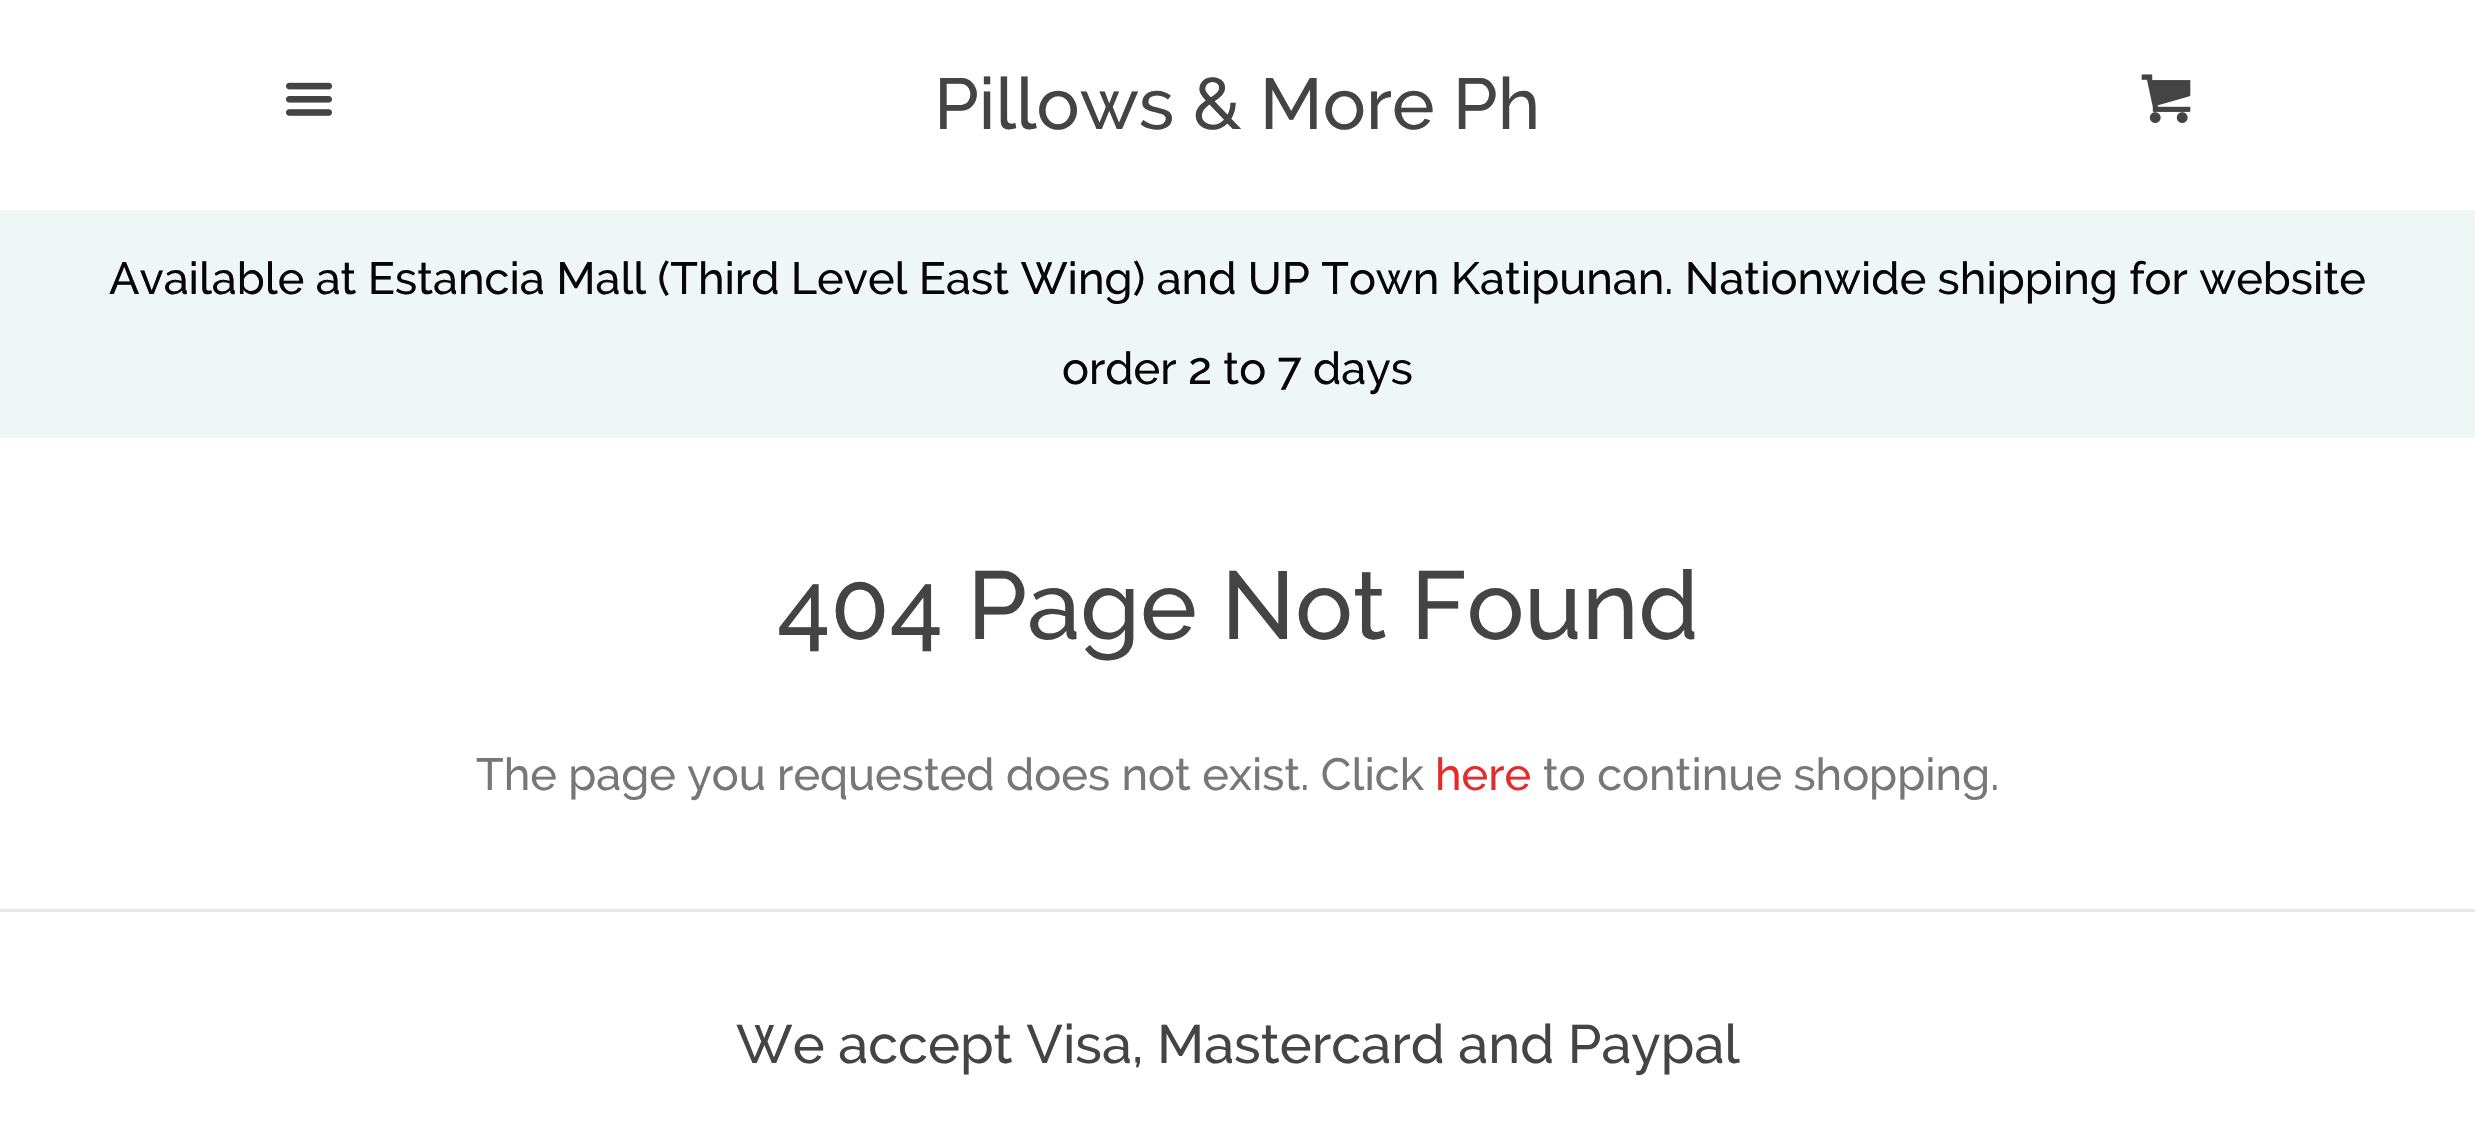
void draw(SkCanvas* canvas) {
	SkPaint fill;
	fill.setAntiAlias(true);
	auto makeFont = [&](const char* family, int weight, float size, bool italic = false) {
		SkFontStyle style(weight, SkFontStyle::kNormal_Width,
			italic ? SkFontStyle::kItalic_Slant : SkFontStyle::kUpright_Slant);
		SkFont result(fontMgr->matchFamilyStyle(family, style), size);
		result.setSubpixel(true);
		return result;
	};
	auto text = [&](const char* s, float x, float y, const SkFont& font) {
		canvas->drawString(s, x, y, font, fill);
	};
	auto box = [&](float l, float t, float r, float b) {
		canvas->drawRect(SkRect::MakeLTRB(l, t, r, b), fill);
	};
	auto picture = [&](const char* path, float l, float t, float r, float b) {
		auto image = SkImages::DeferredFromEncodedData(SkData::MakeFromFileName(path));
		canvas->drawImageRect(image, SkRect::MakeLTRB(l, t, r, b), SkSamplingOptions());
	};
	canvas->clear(0xFFFFFFFF);
	picture("image0.png", 285, 82, 333, 116);
	picture("image1.png", 2141, 74, 2191, 123);
	fill.setColor(0xFFEFF7F6);
	box(0, 210, 2475, 438);
	fill.setColor(0xFFE7E7E7);
	box(0, 909, 2475, 912);
	auto font1 = makeFont("Raleway", 500, 72);
	fill.setColor(0xFF444444);
	text("Pillows & More Ph", 934, 129, font1);
	auto font2 = makeFont("Raleway", 500, 45);
	fill.setColor(0xFF070606);
	text("Available at Estancia Mall (Third Level East Wing) and UP Town Katipunan. Nationwide shipping for website", 109, 294, font2);
	text("order 2 to 7 days", 1062, 384, font2);
	auto font3 = makeFont("Raleway", 500, 96);
	fill.setColor(0xFF444444);
	text("404 Page Not Found", 777, 639, font3);
	fill.setColor(0xFF777777);
	text("The page you requested does not exist. Click", 476, 790, font2);
	fill.setColor(0xFFE32C2B);
	text("here", 1435, 790, font2);
	fill.setColor(0xFF777777);
	text("to continue shopping.", 1543, 790, font2);
	auto font4 = makeFont("Raleway", 500, 54);
	fill.setColor(0xFF444444);
	text("We accept Visa, Mastercard and Paypal", 736, 1063, font4);
}
